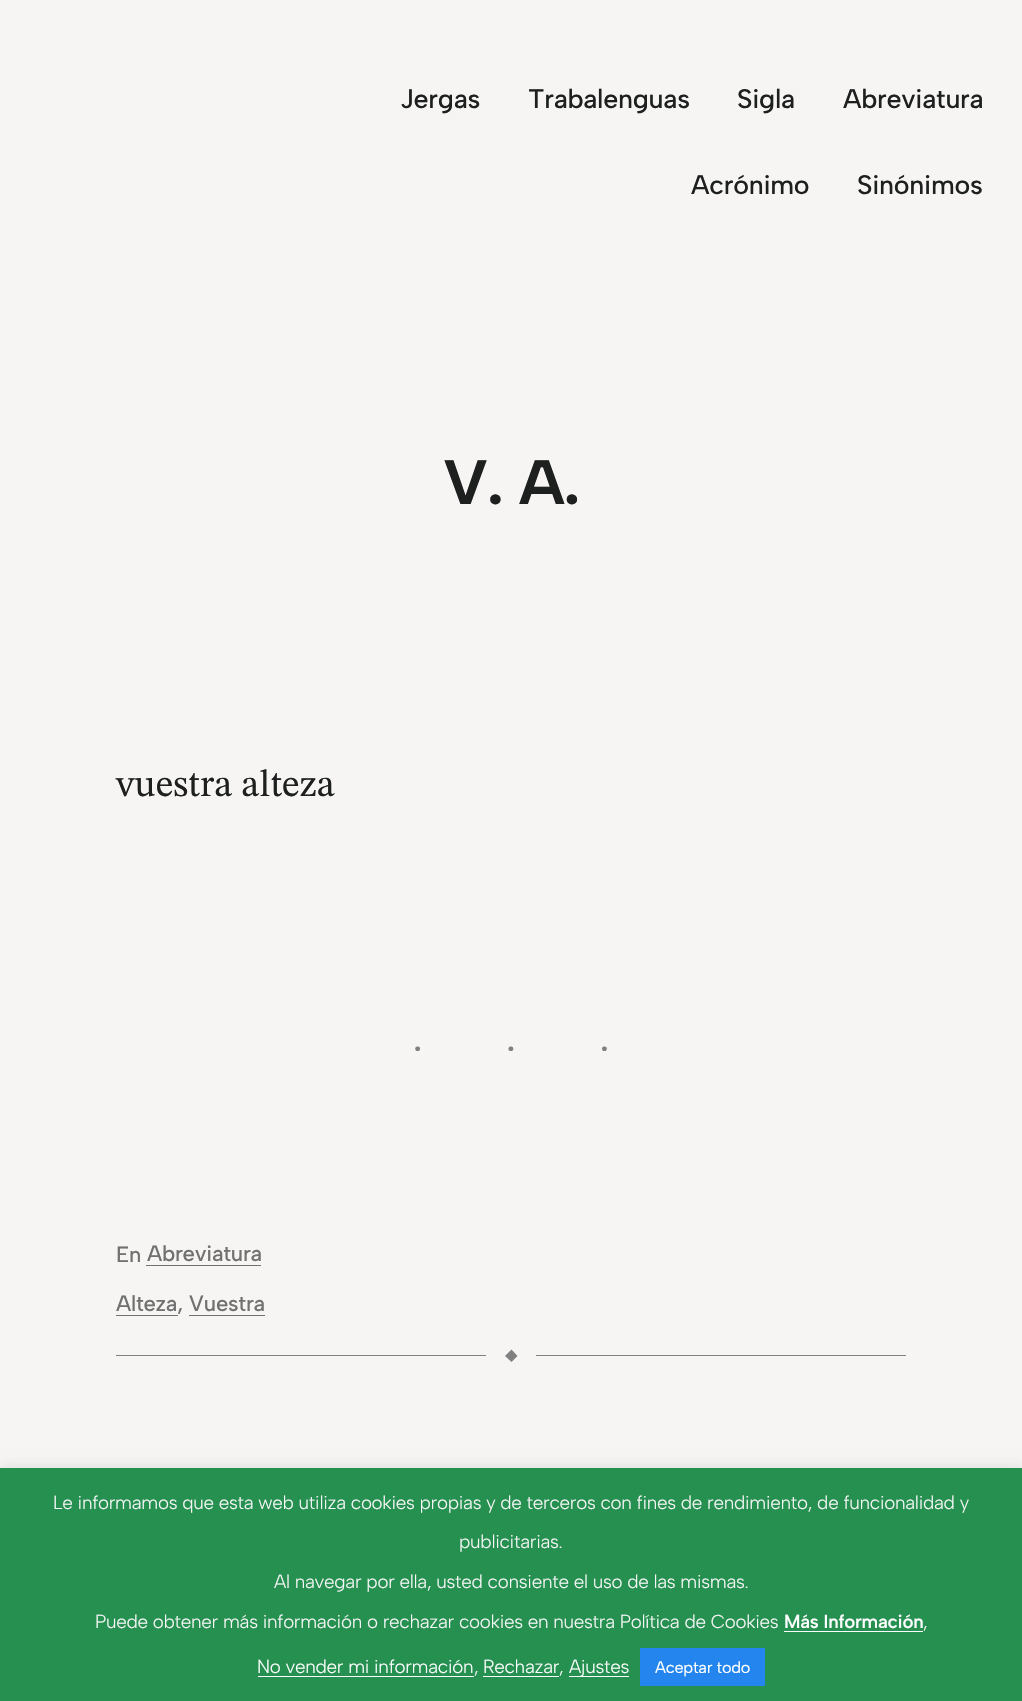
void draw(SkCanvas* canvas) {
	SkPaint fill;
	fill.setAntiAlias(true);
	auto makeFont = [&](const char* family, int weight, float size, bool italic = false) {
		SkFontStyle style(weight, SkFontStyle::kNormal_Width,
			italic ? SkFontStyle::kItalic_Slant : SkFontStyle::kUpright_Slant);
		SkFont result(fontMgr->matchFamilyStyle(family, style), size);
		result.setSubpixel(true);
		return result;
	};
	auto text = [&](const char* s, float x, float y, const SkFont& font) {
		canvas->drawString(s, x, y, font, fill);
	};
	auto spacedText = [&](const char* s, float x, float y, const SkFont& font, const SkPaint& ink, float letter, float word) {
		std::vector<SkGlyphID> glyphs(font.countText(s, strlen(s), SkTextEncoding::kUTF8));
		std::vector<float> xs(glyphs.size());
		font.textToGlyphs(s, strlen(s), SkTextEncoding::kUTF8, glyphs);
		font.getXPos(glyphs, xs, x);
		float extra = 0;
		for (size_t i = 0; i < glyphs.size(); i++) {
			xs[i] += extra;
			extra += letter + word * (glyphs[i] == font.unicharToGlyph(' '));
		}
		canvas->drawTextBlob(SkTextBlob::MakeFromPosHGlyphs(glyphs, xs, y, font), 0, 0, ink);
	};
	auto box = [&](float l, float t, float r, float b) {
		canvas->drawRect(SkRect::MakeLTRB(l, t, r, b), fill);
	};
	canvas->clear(0xFFF7F5F3);
	fill.setColor(0xFF707170);
	box(146, 1265, 261, 1266);
	box(116, 1315, 178, 1316);
	box(189, 1315, 265, 1316);
	fill.setColor(0xFF808080);
	box(116, 1355, 486, 1356);
	box(536, 1355, 906, 1356);
	canvas->drawPath(SkPathBuilder().moveTo(511.5f, 1349.5f).lineTo(517.5f, 1356).lineTo(511.5f, 1362).lineTo(505, 1356).close().detach(), fill);
	fill.setColor(0x4DACABAB);
	fill.setMaskFilter(SkMaskFilter::MakeBlur(kNormal_SkBlurStyle, 6));
	canvas->drawRect(SkRect::MakeLTRB(0, 1466, 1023, 1700), fill);
	fill.setMaskFilter(nullptr);
	fill.setColor(0xFF259050);
	box(0, 1468, 1022, 1701);
	fill.setColor(0xFFFFFFFF);
	box(784, 1631, 923, 1632);
	box(258, 1676, 474, 1677);
	box(483, 1676, 559, 1677);
	box(569, 1676, 629, 1677);
	fill.setColor(0xFF2385ED);
	box(640, 1648, 765, 1686);
	auto font1 = makeFont("Albert Sans", 500, 26.75f);
	fill.setColor(0xFF1D201F);
	spacedText("Jergas", 400, 108, font1, fill, -0.27f, 0);
	spacedText("Trabalenguas", 528, 108, font1, fill, -0.27f, 0);
	spacedText("Sigla", 737, 108, font1, fill, -0.27f, 0);
	spacedText("Abreviatura", 843, 108, font1, fill, -0.27f, 0);
	spacedText("Acrónimo", 691, 194, font1, fill, -0.27f, 0);
	spacedText("Sinónimos", 857, 194, font1, fill, -0.27f, 0);
	auto font2 = makeFont("Albert Sans", 700, 62.5f);
	spacedText("V. A.", 443, 504, font2, fill, -1.25f, 0);
	auto font3 = makeFont("STIX Two Text", 400, 37.75f);
	text("vuestra alteza", 116, 796, font3);
	auto font4 = makeFont("Liberation Serif", 400, 40);
	fill.setColor(0xFF808080);
	spacedText("···", 411, 1062, font4, fill, 80, 0);
	auto font5 = makeFont("Albert Sans", 500, 22);
	fill.setColor(0xFF707170);
	spacedText("En", 116, 1262, font5, fill, -0.27f, 0);
	spacedText("Abreviatura", 147, 1261, font5, fill, -0.27f, 0);
	spacedText("Alteza, Vuestra", 116, 1311, font5, fill, -0.27f, 0);
	auto font6 = makeFont("Albert Sans", 300, 18.75f);
	fill.setColor(0xFFF7F7F7);
	spacedText("Le informamos que esta web utiliza cookies propias y de terceros con fines de rendimiento, de funcionalidad y", 53, 1509, font6, fill, -0.27f, 0);
	spacedText("publicitarias.", 459, 1548, font6, fill, -0.27f, 0);
	spacedText("Al navegar por ella, usted consiente el uso de las mismas.", 274, 1588, font6, fill, -0.27f, 0);
	spacedText("Puede obtener más información o rechazar cookies en nuestra Política de Cookies", 95, 1628, font6, fill, -0.27f, 0);
	auto font7 = makeFont("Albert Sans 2", 500, 18.75f);
	fill.setColor(0xFFFFFFFF);
	spacedText("Más Información", 784, 1628, font7, fill, -0.27f, 0);
	fill.setColor(0xFFF7F7F7);
	spacedText(",", 923, 1628, font6, fill, -0.27f, 0);
	fill.setColor(0xFFFFFFFF);
	spacedText("No vender mi información", 257, 1673, font6, fill, -0.27f, 0);
	fill.setColor(0xFFF7F7F7);
	spacedText(",", 474, 1673, font6, fill, -0.27f, 0);
	fill.setColor(0xFFFFFFFF);
	spacedText("Rechazar", 483, 1673, font6, fill, -0.27f, 0);
	fill.setColor(0xFFF7F7F7);
	spacedText(",", 559, 1673, font6, fill, -0.27f, 0);
	fill.setColor(0xFFFFFFFF);
	spacedText("Ajustes", 569, 1673, font6, fill, -0.27f, 0);
	auto font8 = makeFont("Albert Sans", 400, 16.25f);
	spacedText("Aceptar todo", 655, 1673, font8, fill, -0.27f, 0);
}
